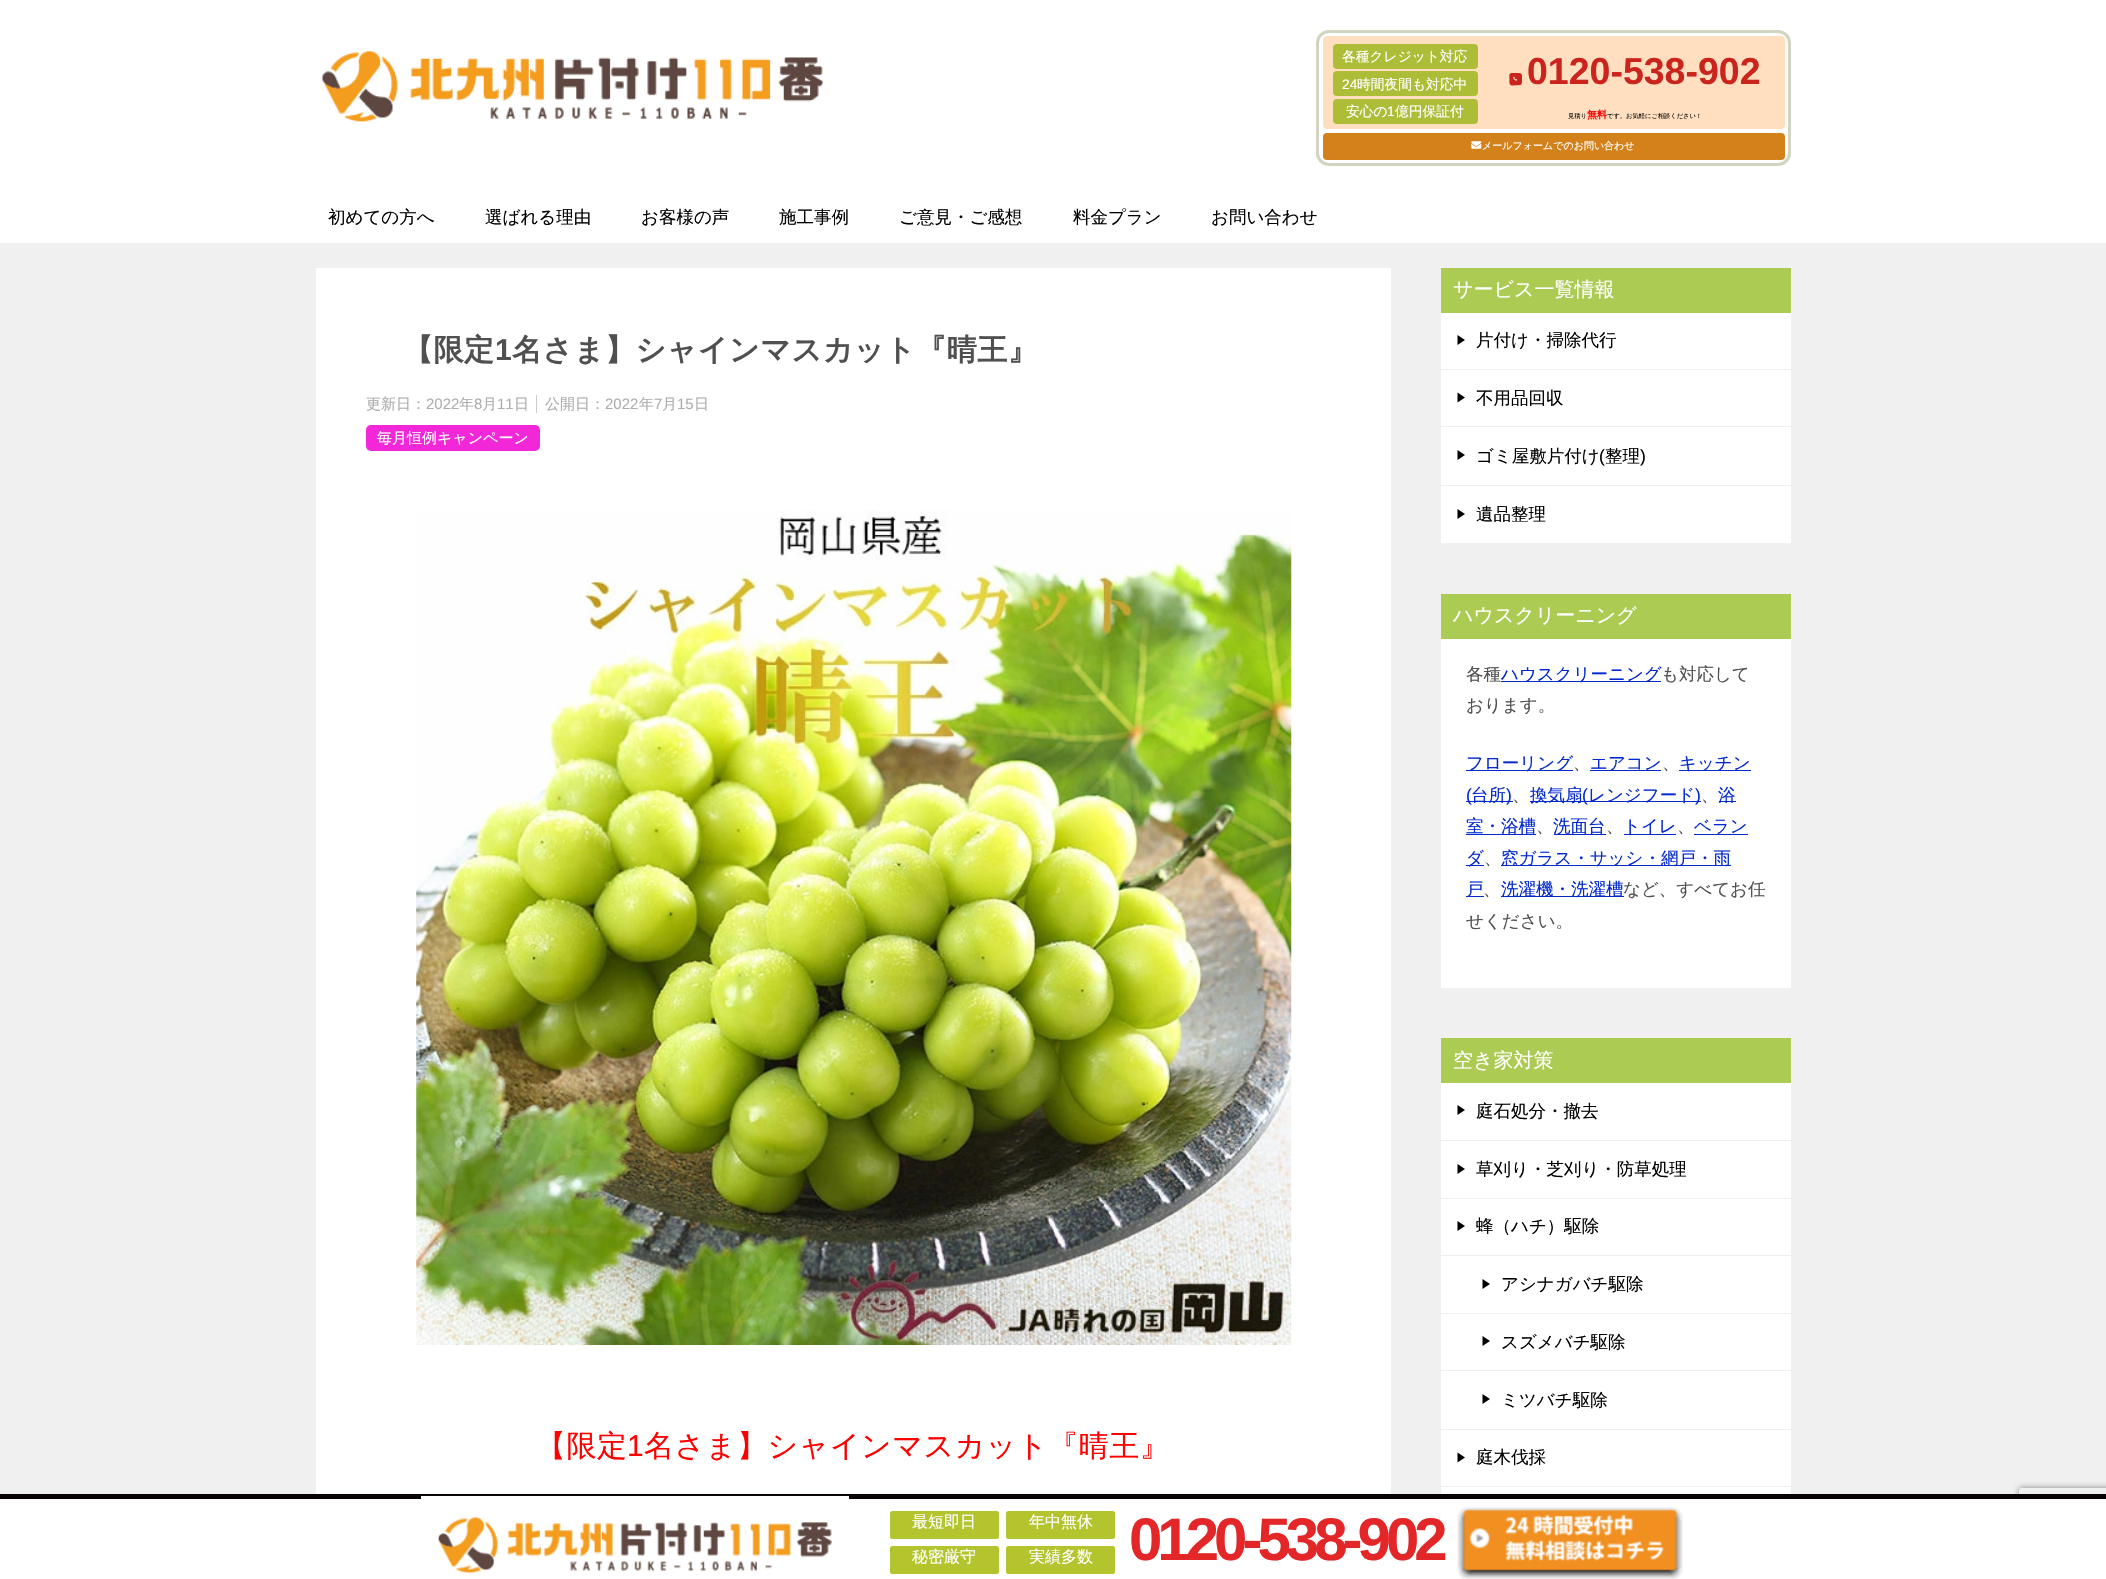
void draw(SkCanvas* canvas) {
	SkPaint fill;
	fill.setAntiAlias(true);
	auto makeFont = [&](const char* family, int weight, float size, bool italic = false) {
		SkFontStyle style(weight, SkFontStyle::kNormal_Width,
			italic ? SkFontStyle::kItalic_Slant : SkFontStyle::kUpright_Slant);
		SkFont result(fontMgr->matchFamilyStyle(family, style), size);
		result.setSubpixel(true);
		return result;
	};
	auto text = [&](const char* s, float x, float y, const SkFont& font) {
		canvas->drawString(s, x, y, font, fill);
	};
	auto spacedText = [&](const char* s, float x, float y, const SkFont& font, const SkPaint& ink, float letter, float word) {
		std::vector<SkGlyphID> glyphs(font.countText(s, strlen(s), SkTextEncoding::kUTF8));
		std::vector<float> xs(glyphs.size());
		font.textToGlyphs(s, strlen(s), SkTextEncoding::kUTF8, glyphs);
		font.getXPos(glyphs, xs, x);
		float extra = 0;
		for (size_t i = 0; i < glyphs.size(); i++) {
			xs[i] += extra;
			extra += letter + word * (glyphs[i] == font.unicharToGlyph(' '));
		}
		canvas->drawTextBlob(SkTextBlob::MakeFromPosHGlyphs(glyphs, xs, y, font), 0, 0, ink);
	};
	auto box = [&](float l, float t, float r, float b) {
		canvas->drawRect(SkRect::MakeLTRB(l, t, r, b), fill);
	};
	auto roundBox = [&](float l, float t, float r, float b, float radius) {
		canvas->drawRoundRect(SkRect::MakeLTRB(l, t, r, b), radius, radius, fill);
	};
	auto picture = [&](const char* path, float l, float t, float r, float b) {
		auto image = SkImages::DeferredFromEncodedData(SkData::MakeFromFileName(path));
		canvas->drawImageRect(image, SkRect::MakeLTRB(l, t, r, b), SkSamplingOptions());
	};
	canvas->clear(0xFFF0F0F0);
	fill.setColor(0xFFFFFFFF);
	box(0, 0, 2106, 243);
	picture("image0.png", 322, 51, 824, 122);
	fill.setStyle(SkPaint::kStroke_Style);
	fill.setStrokeWidth(3);
	fill.setColor(0xFFD1D4C0);
	canvas->drawRoundRect(SkRect::MakeLTRB(1317.5f, 31.5f, 1789.5f, 164.5f), 11.5f, 11.5f, fill);
	fill.setStyle(SkPaint::kFill_Style);
	fill.setColor(0xFFFFDFBF);
	roundBox(1323, 36, 1785, 129, 4);
	fill.setColor(0xFFADBD38);
	roundBox(1333, 44, 1478, 69, 4);
	roundBox(1333, 71, 1478, 96, 4);
	roundBox(1333, 99, 1478, 124, 4);
	fill.setColor(0xFFCB241D);
	canvas->drawPath(SkPathBuilder().moveTo(1519.5f, 73).lineTo(1511, 73).cubicTo(1508.5f, 74, 1509.5f, 77, 1509.5f, 79).cubicTo(1509.5f, 81, 1508.5f, 85, 1512, 85.5f).lineTo(1520.5f, 85).cubicTo(1522.5f, 84, 1522, 81, 1522, 79).cubicTo(1522, 77, 1522.5f, 73, 1519.5f, 73).close().detach(), fill);
	picture("image1.png", 1513, 76, 1517, 81);
	fill.setColor(0xFFD3811B);
	roundBox(1323, 133, 1785, 160, 4);
	picture("image2.png", 1471, 141, 1482, 149);
	fill.setColor(0xFFFFFFFF);
	box(316, 268, 1391, 1494);
	fill.setColor(0xFFCCCCCC);
	box(536, 395, 537, 413);
	fill.setColor(0xFFF127D8);
	roundBox(366, 425, 540, 451, 5);
	picture("image3.png", 416, 510, 1292, 1345);
	fill.setColor(0xFFFFFFFF);
	box(1441, 313, 1791, 543);
	fill.setColor(0xFFACCB52);
	box(1441, 268, 1791, 313);
	fill.setColor(0xFFEEEEEE);
	box(1441, 369, 1791, 370);
	fill.setColor(0xFF000000);
	canvas->drawPath(SkPathBuilder().moveTo(1457.5f, 345).lineTo(1457.5f, 335).lineTo(1465, 340).close().detach(), fill);
	fill.setColor(0xFFEEEEEE);
	box(1441, 426, 1791, 427);
	fill.setColor(0xFF000000);
	canvas->drawPath(SkPathBuilder().moveTo(1457.5f, 402.5f).lineTo(1457.5f, 392.5f).lineTo(1465, 397.5f).close().detach(), fill);
	fill.setColor(0xFFEEEEEE);
	box(1441, 485, 1791, 486);
	fill.setColor(0xFF000000);
	canvas->drawPath(SkPathBuilder().moveTo(1457.5f, 460).lineTo(1457.5f, 450).lineTo(1465, 455).close().detach(), fill);
	canvas->drawPath(SkPathBuilder().moveTo(1457.5f, 519).lineTo(1457.5f, 509).lineTo(1465, 514).close().detach(), fill);
	fill.setColor(0xFFFFFFFF);
	box(1441, 639, 1791, 988);
	fill.setColor(0xFFACCB52);
	box(1441, 594, 1791, 639);
	fill.setColor(0xFF0329CE);
	box(1501, 681, 1661, 682);
	box(1466, 770, 1573, 771);
	box(1590, 770, 1661, 771);
	box(1679, 770, 1751, 771);
	box(1466, 801, 1513, 802);
	box(1530, 801, 1701, 802);
	box(1719, 801, 1736, 802);
	box(1466, 834, 1536, 835);
	box(1554, 834, 1606, 835);
	box(1624, 834, 1676, 835);
	box(1694, 834, 1748, 835);
	box(1466, 865, 1484, 866);
	box(1501, 865, 1731, 866);
	box(1466, 896, 1484, 897);
	box(1501, 896, 1624, 897);
	fill.setColor(0xFFFFFFFF);
	box(1441, 1083, 1791, 1494);
	fill.setColor(0xFFACCB52);
	box(1441, 1038, 1791, 1083);
	fill.setColor(0xFFEEEEEE);
	box(1441, 1140, 1791, 1141);
	fill.setColor(0xFF000000);
	canvas->drawPath(SkPathBuilder().moveTo(1457.5f, 1115).lineTo(1457.5f, 1105).lineTo(1465, 1110).close().detach(), fill);
	fill.setColor(0xFFEEEEEE);
	box(1441, 1198, 1791, 1199);
	fill.setColor(0xFF000000);
	canvas->drawPath(SkPathBuilder().moveTo(1457.5f, 1174).lineTo(1457.5f, 1164).lineTo(1465, 1169).close().detach(), fill);
	fill.setColor(0xFFEEEEEE);
	box(1441, 1429, 1791, 1430);
	fill.setColor(0xFF000000);
	canvas->drawPath(SkPathBuilder().moveTo(1457.5f, 1231).lineTo(1457.5f, 1221).lineTo(1465, 1226).close().detach(), fill);
	fill.setColor(0xFFEEEEEE);
	box(1441, 1255, 1791, 1256);
	box(1441, 1313, 1791, 1314);
	fill.setColor(0xFF000000);
	canvas->drawPath(SkPathBuilder().moveTo(1482.5f, 1289).lineTo(1482.5f, 1279).lineTo(1490, 1284).close().detach(), fill);
	fill.setColor(0xFFEEEEEE);
	box(1441, 1370, 1791, 1371);
	fill.setColor(0xFF000000);
	canvas->drawPath(SkPathBuilder().moveTo(1482.5f, 1346).lineTo(1482.5f, 1336).lineTo(1490, 1341).close().detach(), fill);
	canvas->drawPath(SkPathBuilder().moveTo(1482.5f, 1404).lineTo(1482.5f, 1394).lineTo(1490, 1399).close().detach(), fill);
	fill.setColor(0xFFEEEEEE);
	box(1441, 1486, 1791, 1487);
	fill.setColor(0xFF000000);
	canvas->drawPath(SkPathBuilder().moveTo(1457.5f, 1462.5f).lineTo(1457.5f, 1452.5f).lineTo(1465, 1457.5f).close().detach(), fill);
	canvas->save();
	canvas->clipPath(SkPathBuilder(SkPathFillType::kEvenOdd).moveTo(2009, 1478).lineTo(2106, 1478).lineTo(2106, 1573).lineTo(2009, 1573).close().moveTo(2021.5f, 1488).lineTo(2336.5f, 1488).cubicTo(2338, 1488, 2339, 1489, 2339, 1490.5f).lineTo(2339, 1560.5f).cubicTo(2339, 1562, 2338, 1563, 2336.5f, 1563).lineTo(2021.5f, 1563).cubicTo(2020, 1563, 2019, 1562, 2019, 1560.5f).lineTo(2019, 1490.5f).cubicTo(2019, 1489, 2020, 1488, 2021.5f, 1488).close().detach(), true);
	fill.setColor(0xFF808080);
	fill.setMaskFilter(SkMaskFilter::MakeBlur(kNormal_SkBlurStyle, 3));
	canvas->drawRoundRect(SkRect::MakeLTRB(2019, 1488, 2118, 1563), 2.5f, 2.5f, fill);
	fill.setMaskFilter(nullptr);
	canvas->restore();
	fill.setColor(0xFFFFFFFF);
	box(0, 1499, 2106, 1579);
	fill.setColor(0xFF080404);
	box(0, 1494, 2106, 1499);
	fill.setColor(0xFFFFFFFF);
	box(421, 1496, 849, 1499);
	picture("image4.png", 438, 1517, 833, 1574);
	fill.setColor(0xFFB3C42E);
	roundBox(890, 1511, 999, 1539, 2.5f);
	roundBox(1006, 1511, 1115, 1539, 2.5f);
	roundBox(890, 1546, 999, 1574, 2.5f);
	roundBox(1006, 1546, 1115, 1574, 2.5f);
	picture("image5.png", 1457, 1507, 1683, 1579);
	auto font1 = makeFont("WenQuanYi Zen Hei", 500, 13.75f);
	fill.setColor(0xFFFFFFFF);
	text("各種クレジット対応", 1342, 61, font1);
	auto font2 = makeFont("Liberation Sans", 400, 13.75f);
	text("24", 1342, 89, font2);
	text("時間夜間も対応中", 1357, 89, font1);
	text("安心の", 1346, 116, font1);
	text("1", 1387, 116, font2);
	text("億円保証付", 1395, 116, font1);
	auto font3 = makeFont("Liberation Sans", 700, 37.5f);
	fill.setColor(0xFFCB241D);
	text("0120-538-902", 1527, 84, font3);
	auto font4 = makeFont("WenQuanYi Zen Hei", 500, 6.25f);
	fill.setColor(0xFF000000);
	text("見積り", 1568, 118, font4);
	auto font5 = makeFont("WenQuanYi Zen Hei", 700, 10);
	fill.setColor(0xFFFF0000);
	text("無料", 1587, 118, font5);
	fill.setColor(0xFF000000);
	text("です。お気軽にご相談ください！", 1607, 118, font4);
	auto font6 = makeFont("WenQuanYi Zen Hei", 500, 10);
	fill.setColor(0xFFFFFFFF);
	text("メールフォームでのお問い合わせ", 1482, 149, font6);
	auto font7 = makeFont("WenQuanYi Zen Hei", 500, 17.5f);
	fill.setColor(0xFF000000);
	text("初めての方へ", 328, 223, font7);
	text("選ばれる理由", 485, 223, font7);
	text("お客様の声", 641, 223, font7);
	text("施工事例", 779, 223, font7);
	text("ご意見・ご感想", 899, 223, font7);
	text("料金プラン", 1073, 223, font7);
	text("お問い合わせ", 1211, 223, font7);
	auto font8 = makeFont("WenQuanYi Zen Hei", 700, 30);
	fill.setColor(0xFF505050);
	spacedText("【限定", 403, 360, font8, fill, 0.5f, 0);
	auto font9 = makeFont("Liberation Sans", 700, 30);
	spacedText("1", 495, 360, font9, fill, 0.5f, 0);
	spacedText("名さま】シャインマスカット『晴王』", 512, 360, font8, fill, 0.5f, 0);
	auto font10 = makeFont("WenQuanYi Zen Hei", 500, 15);
	fill.setColor(0xFFADADAD);
	text("更新日：", 366, 409, font10);
	auto font11 = makeFont("Liberation Sans", 400, 15);
	text("2022", 426, 409, font11);
	text("年", 459, 409, font10);
	text("8", 474, 409, font11);
	text("月", 482, 409, font10);
	text("11", 497, 409, font11);
	text("日", 514, 409, font10);
	text("公開日：", 545, 409, font10);
	text("2022", 605, 409, font11);
	text("年", 639, 409, font10);
	text("7", 654, 409, font11);
	text("月", 662, 409, font10);
	text("15", 677, 409, font11);
	text("日", 694, 409, font10);
	fill.setColor(0xFFFFFFFF);
	text("毎月恒例キャンペーン", 377, 443, font10);
	auto font12 = makeFont("WenQuanYi Zen Hei", 500, 30);
	fill.setColor(0xFFFF0000);
	spacedText("【限定", 536, 1456, font12, fill, 0.5f, 0);
	auto font13 = makeFont("Liberation Sans", 400, 30);
	spacedText("1", 627, 1456, font13, fill, 0.5f, 0);
	spacedText("名さま】シャインマスカット『晴王』", 644, 1456, font12, fill, 0.5f, 0);
	auto font14 = makeFont("WenQuanYi Zen Hei", 500, 20);
	fill.setColor(0xFFFFFFFF);
	text("サービス一覧情報", 1453, 296, font14);
	fill.setColor(0xFF000000);
	text("片付け・掃除代行", 1476, 346, font7);
	text("不用品回収", 1476, 404, font7);
	text("ゴミ屋敷片付け", 1476, 462, font7);
	auto font15 = makeFont("Liberation Sans", 400, 17.5f);
	text("(", 1599, 462, font15);
	text("整理", 1605, 462, font7);
	text(")", 1640, 462, font15);
	text("遺品整理", 1476, 520, font7);
	fill.setColor(0xFFFFFFFF);
	text("ハウスクリーニング", 1453, 622, font14);
	fill.setColor(0xFF505050);
	text("各種", 1466, 680, font7);
	fill.setColor(0xFF0329CE);
	text("ハウスクリーニング", 1501, 680, font7);
	fill.setColor(0xFF505050);
	text("も対応して", 1661, 680, font7);
	text("おります。", 1466, 711, font7);
	fill.setColor(0xFF0329CE);
	text("フローリング", 1466, 769, font7);
	fill.setColor(0xFF505050);
	text("、", 1573, 769, font7);
	fill.setColor(0xFF0329CE);
	text("エアコン", 1590, 769, font7);
	fill.setColor(0xFF505050);
	text("、", 1662, 769, font7);
	fill.setColor(0xFF0329CE);
	text("キッチン", 1679, 769, font7);
	text("(", 1466, 801, font15);
	text("台所", 1471, 801, font7);
	text(")", 1506, 801, font15);
	fill.setColor(0xFF505050);
	text("、", 1512, 801, font7);
	fill.setColor(0xFF0329CE);
	text("換気扇", 1530, 801, font7);
	text("(", 1582, 801, font15);
	text("レンジフード", 1588, 801, font7);
	text(")", 1695, 801, font15);
	fill.setColor(0xFF505050);
	text("、", 1701, 801, font7);
	fill.setColor(0xFF0329CE);
	text("浴", 1718, 801, font7);
	text("室・浴槽", 1466, 832, font7);
	fill.setColor(0xFF505050);
	text("、", 1536, 832, font7);
	fill.setColor(0xFF0329CE);
	text("洗面台", 1553, 832, font7);
	fill.setColor(0xFF505050);
	text("、", 1606, 832, font7);
	fill.setColor(0xFF0329CE);
	text("トイレ", 1623, 832, font7);
	fill.setColor(0xFF505050);
	text("、", 1677, 832, font7);
	fill.setColor(0xFF0329CE);
	text("ベラン", 1694, 832, font7);
	text("ダ", 1466, 864, font7);
	fill.setColor(0xFF505050);
	text("、", 1484, 864, font7);
	fill.setColor(0xFF0329CE);
	text("窓ガラス・サッシ・網戸・雨", 1501, 864, font7);
	text("戸", 1466, 895, font7);
	fill.setColor(0xFF505050);
	text("、", 1483, 895, font7);
	fill.setColor(0xFF0329CE);
	text("洗濯機・洗濯槽", 1501, 895, font7);
	fill.setColor(0xFF505050);
	text("など、すべてお任", 1623, 895, font7);
	text("せください。", 1466, 927, font7);
	fill.setColor(0xFFFFFFFF);
	text("空き家対策", 1453, 1067, font14);
	fill.setColor(0xFF000000);
	text("庭石処分・撤去", 1476, 1117, font7);
	text("草刈り・芝刈り・防草処理", 1476, 1175, font7);
	text("蜂（ハチ）駆除", 1476, 1232, font7);
	text("アシナガバチ駆除", 1501, 1290, font7);
	text("スズメバチ駆除", 1501, 1348, font7);
	text("ミツバチ駆除", 1501, 1406, font7);
	text("庭木伐採", 1476, 1463, font7);
	auto font16 = makeFont("WenQuanYi Zen Hei", 500, 16);
	fill.setColor(0xFFFFFFFF);
	text("最短即日", 912, 1527, font16);
	text("年中無休", 1029, 1527, font16);
	text("秘密厳守", 912, 1562, font16);
	text("実績多数", 1029, 1562, font16);
	auto font17 = makeFont("Liberation Sans", 700, 60);
	fill.setColor(0xFFE32728);
	spacedText("0120-538-902", 1129, 1560, font17, fill, -5, 0);
}
